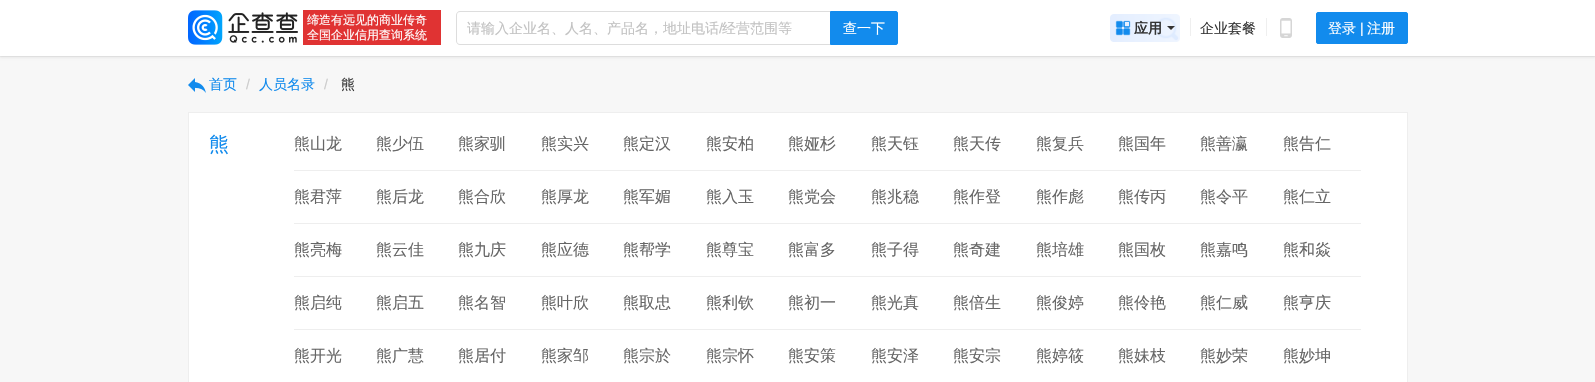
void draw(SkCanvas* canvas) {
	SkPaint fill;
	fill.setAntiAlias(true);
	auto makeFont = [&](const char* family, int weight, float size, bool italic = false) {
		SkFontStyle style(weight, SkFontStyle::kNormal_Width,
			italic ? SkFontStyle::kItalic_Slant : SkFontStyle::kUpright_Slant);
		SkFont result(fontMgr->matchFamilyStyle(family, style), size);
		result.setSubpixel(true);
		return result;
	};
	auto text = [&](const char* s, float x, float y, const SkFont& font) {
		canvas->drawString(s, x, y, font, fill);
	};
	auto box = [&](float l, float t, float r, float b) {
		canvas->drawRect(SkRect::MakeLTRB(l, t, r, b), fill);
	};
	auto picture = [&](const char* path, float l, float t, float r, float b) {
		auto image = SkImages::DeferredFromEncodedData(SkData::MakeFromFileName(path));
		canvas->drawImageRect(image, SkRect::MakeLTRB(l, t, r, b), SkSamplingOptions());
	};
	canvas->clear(0xFFF7F7F7);
	fill.setColor(0xFFEBEBEB);
	box(0, 56, 1595, 57);
	fill.setColor(0x0D000000);
	fill.setMaskFilter(SkMaskFilter::MakeBlur(kNormal_SkBlurStyle, 1));
	canvas->drawRect(SkRect::MakeLTRB(0, 2, 1595, 58), fill);
	fill.setMaskFilter(nullptr);
	fill.setColor(0xFFFFFFFF);
	box(0, 0, 1595, 56);
	picture("image0.png", 188, 10, 298, 45);
	fill.setColor(0xFFE03333);
	box(303, 10, 441, 45);
	fill.setColor(0xFFDDDDDD);
	canvas->drawPath(SkPathBuilder(SkPathFillType::kEvenOdd).moveTo(460, 11).lineTo(830, 11).lineTo(830, 45).lineTo(460, 45).cubicTo(458, 45, 456, 43, 456, 41).lineTo(456, 15).cubicTo(456, 13, 458, 11, 460, 11).close().moveTo(460, 12).lineTo(830, 12).lineTo(830, 44).lineTo(460, 44).cubicTo(458, 44, 457, 43, 457, 41).lineTo(457, 15).cubicTo(457, 13, 458, 12, 460, 12).close().detach(), fill);
	fill.setColor(0xFF128BED);
	canvas->drawPath(SkPathBuilder().moveTo(830.5f, 11.5f).lineTo(896, 11.5f).cubicTo(897, 11.5f, 897.5f, 12, 897.5f, 13).lineTo(897.5f, 43).cubicTo(897.5f, 44, 897, 44.5f, 896, 44.5f).lineTo(830.5f, 44.5f).close().detach(), fill);
	fill.setStyle(SkPaint::kStroke_Style);
	fill.setStrokeWidth(1);
	canvas->drawPath(SkPathBuilder().moveTo(830.5f, 11.5f).lineTo(896, 11.5f).cubicTo(897, 11.5f, 897.5f, 12, 897.5f, 13).lineTo(897.5f, 43).cubicTo(897.5f, 44, 897, 44.5f, 896, 44.5f).lineTo(830.5f, 44.5f).close().detach(), fill);
	picture("image1.png", 1110, 14, 1180, 42);
	picture("image2.png", 1115, 20, 1131, 36);
	fill.setStyle(SkPaint::kFill_Style);
	fill.setColor(0xFF333333);
	canvas->drawPath(SkPathBuilder().moveTo(1167, 26).lineTo(1175, 26).lineTo(1171, 30).close().detach(), fill);
	fill.setColor(0xFFEFEFEF);
	box(1190, 18, 1191, 36);
	box(1266, 18, 1267, 36);
	picture("image3.png", 1280, 18, 1292, 38);
	fill.setColor(0xFF128BED);
	canvas->drawRoundRect(SkRect::MakeLTRB(1316.5f, 12.5f, 1407.5f, 43.5f), 1.5f, 1.5f, fill);
	fill.setStyle(SkPaint::kStroke_Style);
	canvas->drawRoundRect(SkRect::MakeLTRB(1316.5f, 12.5f, 1407.5f, 43.5f), 1.5f, 1.5f, fill);
	picture("image4.png", 188, 78, 206, 93);
	fill.setStyle(SkPaint::kFill_Style);
	fill.setColor(0xFFFFFFFF);
	canvas->drawRect(SkRect::MakeLTRB(188.5f, 112.5f, 1407.5f, 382.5f), fill);
	fill.setStyle(SkPaint::kStroke_Style);
	fill.setColor(0xFFEEEEEE);
	canvas->drawRect(SkRect::MakeLTRB(188.5f, 112.5f, 1407.5f, 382.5f), fill);
	fill.setStyle(SkPaint::kFill_Style);
	box(294, 170, 1361, 171);
	box(294, 223, 1361, 224);
	box(294, 276, 1361, 277);
	box(294, 329, 1361, 330);
	auto font1 = makeFont("WenQuanYi Zen Hei", 500, 12);
	fill.setColor(0xFFFFFFFF);
	text("缔造有远见的商业传奇", 307, 24, font1);
	text("全国企业信用查询系统", 307, 39, font1);
	auto font2 = makeFont("WenQuanYi Zen Hei", 500, 14);
	fill.setColor(0xFFC2C2C2);
	text("请输入企业名、人名、产品名，地址电话", 467, 33, font2);
	auto font3 = makeFont("Liberation Sans", 400, 14);
	text("/", 719, 33, font3);
	text("经营范围等", 722, 33, font2);
	fill.setColor(0xFFFFFFFF);
	text("查一下", 843, 33, font2);
	auto font4 = makeFont("WenQuanYi Zen Hei", 700, 14);
	fill.setColor(0xFF333333);
	text("应用", 1134, 33, font4);
	text("企业套餐", 1200, 33, font2);
	fill.setColor(0xFFFFFFFF);
	text("登录", 1328, 33, font2);
	text("|", 1360, 33, font3);
	text("注册", 1367, 33, font2);
	fill.setColor(0xFF128BED);
	text("首页", 209, 89, font2);
	fill.setColor(0xFFCCCCCC);
	text("/", 246, 89, font3);
	fill.setColor(0xFF128BED);
	text("人员名录", 259, 89, font2);
	fill.setColor(0xFFCCCCCC);
	text("/", 324, 89, font3);
	fill.setColor(0xFF333333);
	text("熊", 341, 89, font2);
	auto font5 = makeFont("WenQuanYi Zen Hei", 500, 20);
	fill.setColor(0xFF128BED);
	text("熊", 209, 151, font5);
	auto font6 = makeFont("WenQuanYi Zen Hei", 500, 16);
	fill.setColor(0xFF666666);
	text("熊山龙", 294, 149, font6);
	text("熊少伍", 376, 149, font6);
	text("熊家驯", 458, 149, font6);
	text("熊实兴", 541, 149, font6);
	text("熊定汉", 623, 149, font6);
	text("熊安柏", 706, 149, font6);
	text("熊娅杉", 788, 149, font6);
	text("熊天钰", 871, 149, font6);
	text("熊天传", 953, 149, font6);
	text("熊复兵", 1036, 149, font6);
	text("熊国年", 1118, 149, font6);
	text("熊善瀛", 1200, 149, font6);
	text("熊告仁", 1283, 149, font6);
	text("熊君萍", 294, 202, font6);
	text("熊后龙", 376, 202, font6);
	text("熊合欣", 458, 202, font6);
	text("熊厚龙", 541, 202, font6);
	text("熊军媚", 623, 202, font6);
	text("熊入玉", 706, 202, font6);
	text("熊党会", 788, 202, font6);
	text("熊兆稳", 871, 202, font6);
	text("熊作登", 953, 202, font6);
	text("熊作彪", 1036, 202, font6);
	text("熊传丙", 1118, 202, font6);
	text("熊令平", 1200, 202, font6);
	text("熊仁立", 1283, 202, font6);
	text("熊亮梅", 294, 255, font6);
	text("熊云佳", 376, 255, font6);
	text("熊九庆", 458, 255, font6);
	text("熊应德", 541, 255, font6);
	text("熊帮学", 623, 255, font6);
	text("熊尊宝", 706, 255, font6);
	text("熊富多", 788, 255, font6);
	text("熊子得", 871, 255, font6);
	text("熊奇建", 953, 255, font6);
	text("熊培雄", 1036, 255, font6);
	text("熊国枚", 1118, 255, font6);
	text("熊嘉鸣", 1200, 255, font6);
	text("熊和焱", 1283, 255, font6);
	text("熊启纯", 294, 308, font6);
	text("熊启五", 376, 308, font6);
	text("熊名智", 458, 308, font6);
	text("熊叶欣", 541, 308, font6);
	text("熊取忠", 623, 308, font6);
	text("熊利钦", 706, 308, font6);
	text("熊初一", 788, 308, font6);
	text("熊光真", 871, 308, font6);
	text("熊倍生", 953, 308, font6);
	text("熊俊婷", 1036, 308, font6);
	text("熊伶艳", 1118, 308, font6);
	text("熊仁威", 1200, 308, font6);
	text("熊亨庆", 1283, 308, font6);
	text("熊开光", 294, 361, font6);
	text("熊广慧", 376, 361, font6);
	text("熊居付", 458, 361, font6);
	text("熊家邹", 541, 361, font6);
	text("熊宗於", 623, 361, font6);
	text("熊宗怀", 706, 361, font6);
	text("熊安策", 788, 361, font6);
	text("熊安泽", 871, 361, font6);
	text("熊安宗", 953, 361, font6);
	text("熊婷筱", 1036, 361, font6);
	text("熊妹枝", 1118, 361, font6);
	text("熊妙荣", 1200, 361, font6);
	text("熊妙坤", 1283, 361, font6);
}
